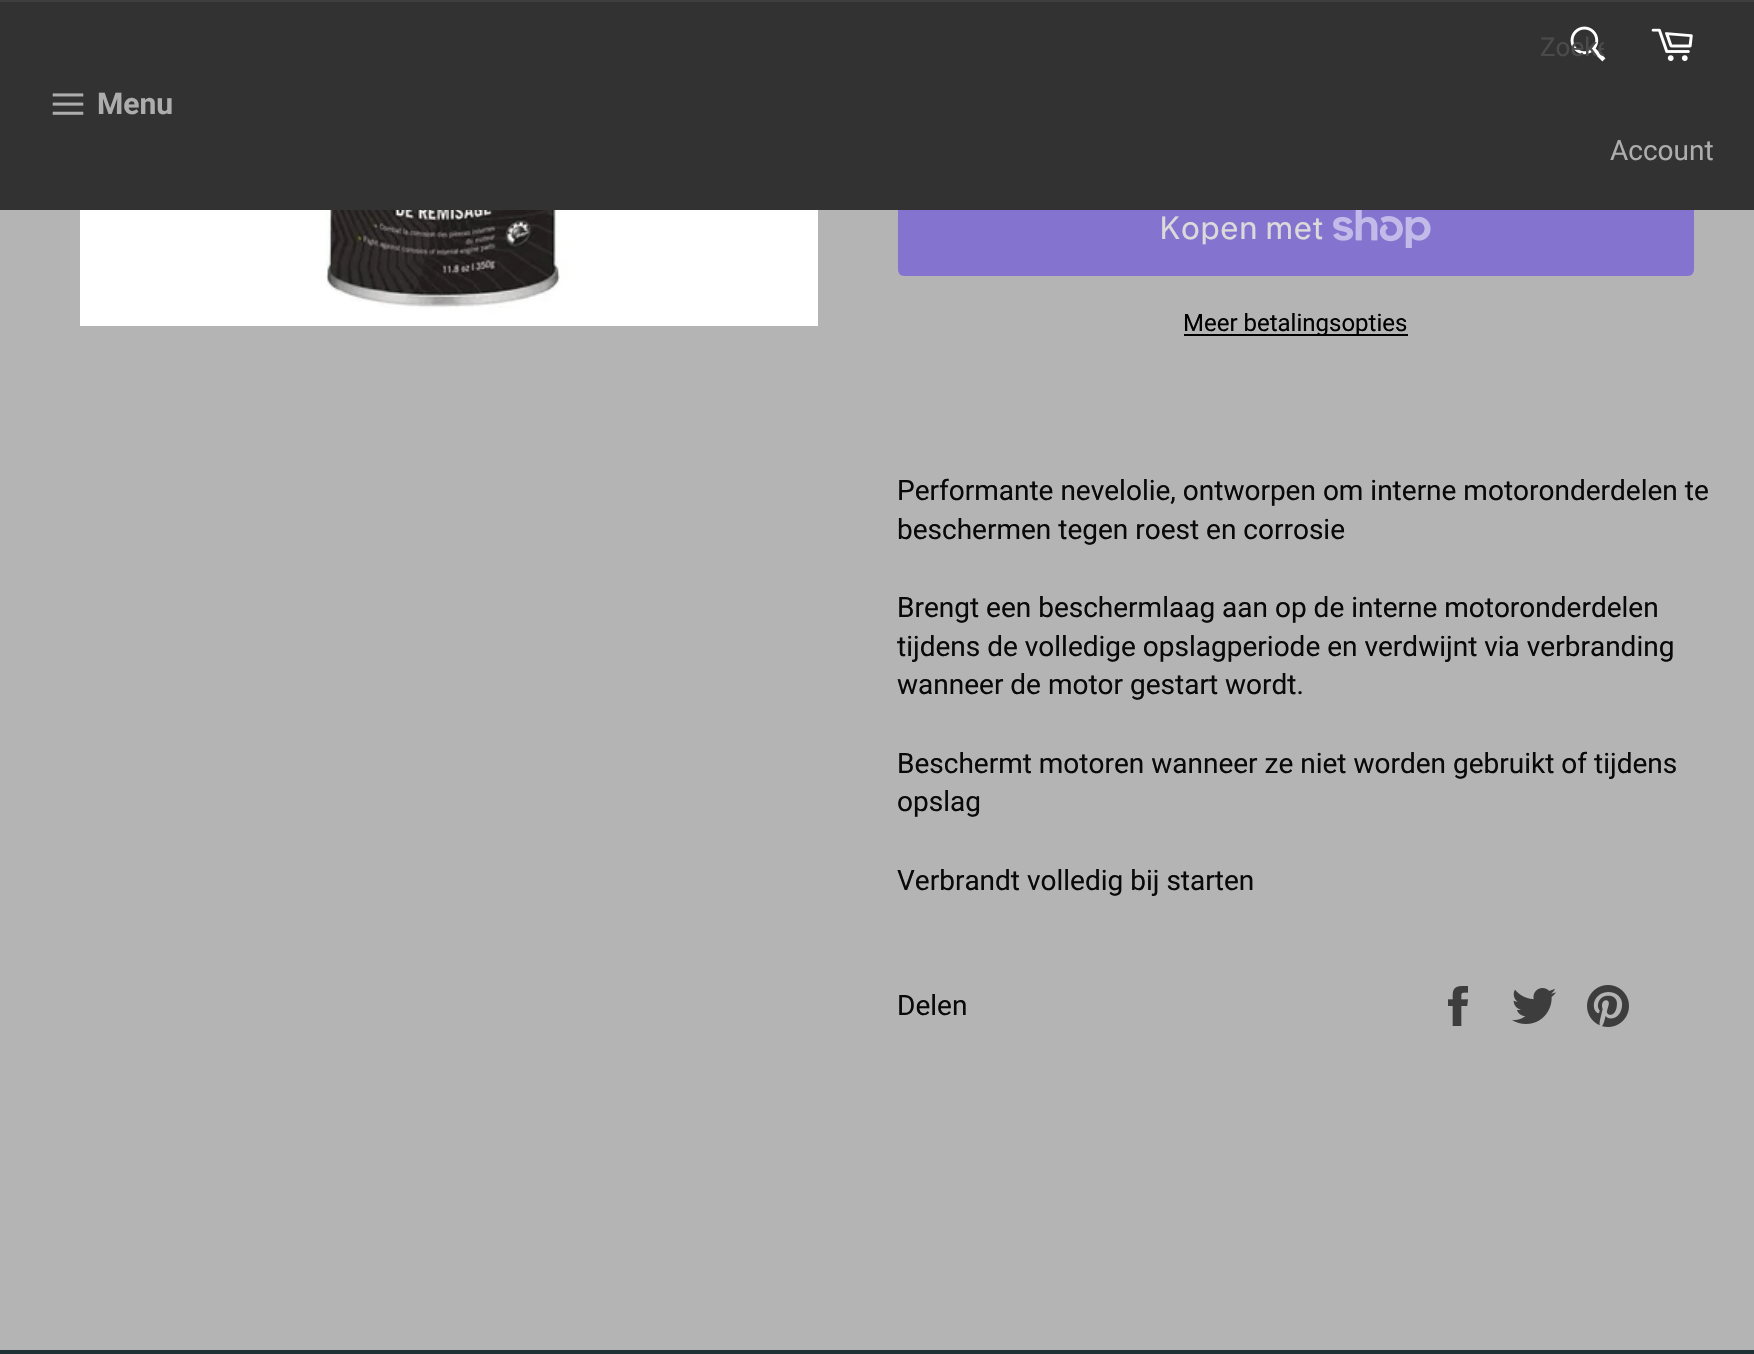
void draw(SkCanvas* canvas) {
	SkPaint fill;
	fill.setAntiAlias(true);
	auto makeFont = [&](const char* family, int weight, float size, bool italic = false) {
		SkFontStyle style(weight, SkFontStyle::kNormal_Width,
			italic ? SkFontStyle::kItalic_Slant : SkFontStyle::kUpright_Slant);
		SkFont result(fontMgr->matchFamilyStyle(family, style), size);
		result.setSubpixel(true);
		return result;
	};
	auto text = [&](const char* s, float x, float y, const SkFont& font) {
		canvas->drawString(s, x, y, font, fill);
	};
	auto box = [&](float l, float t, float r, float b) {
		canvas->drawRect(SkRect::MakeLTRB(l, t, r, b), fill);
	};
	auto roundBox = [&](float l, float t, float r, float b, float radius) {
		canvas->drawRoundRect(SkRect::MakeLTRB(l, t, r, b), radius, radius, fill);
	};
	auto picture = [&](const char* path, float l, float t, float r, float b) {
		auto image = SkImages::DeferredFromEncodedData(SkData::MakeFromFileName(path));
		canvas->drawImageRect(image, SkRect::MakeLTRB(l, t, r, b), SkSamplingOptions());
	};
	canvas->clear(0xFFB4B4B4);
	fill.setColor(0xFF8474D0);
	roundBox(898, 180, 1694, 276, 6);
	fill.setColor(0xFF323232);
	box(0, 2, 1754, 210);
	fill.setColor(0xFF3F3F3F);
	box(0, 0, 1754, 2);
	picture("image0.png", 52, 93, 84, 115);
	picture("image1.png", 1570, 26, 1606, 62);
	picture("image2.png", 1651, 28, 1693, 61);
	picture("image3.png", 80, 210, 818, 326);
	picture("image4.png", 1333, 210, 1431, 248);
	fill.setColor(0xFF000000);
	box(1184, 334, 1408, 336);
	picture("image5.png", 1448, 986, 1468, 1026);
	picture("image6.png", 1512, 988, 1556, 1024);
	picture("image7.png", 1587, 985, 1629, 1027);
	fill.setColor(0xFF213236);
	box(0, 1350, 1754, 1354);
	auto font1 = makeFont("Roboto", 700, 30);
	fill.setColor(0xFFADADAD);
	text("Menu", 97, 114, font1);
	canvas->save();
	canvas->clipRect(SkRect::MakeLTRB(1540, 32, 1604, 62));
	auto font2 = makeFont("Roboto", 400, 26);
	fill.setColor(0xFF4B4B4B);
	text("Zoeke", 1540, 56, font2);
	canvas->restore();
	auto font3 = makeFont("Roboto", 400, 28);
	fill.setColor(0xFFADADAD);
	text("Account", 1610, 160, font3);
	auto font4 = makeFont("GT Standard", 400, 32);
	fill.setColor(0xFFDADADA);
	text("Kopen met", 1159, 239, font4);
	auto font5 = makeFont("Roboto", 400, 24);
	fill.setColor(0xFF000000);
	text("Meer betalingsopties", 1183, 331, font5);
	fill.setColor(0xFF0A0909);
	text("Performante nevelolie, ontworpen om interne motoronderdelen te", 897, 500, font3);
	text("beschermen tegen roest en corrosie", 897, 539, font3);
	text("Brengt een beschermlaag aan op de interne motoronderdelen", 897, 617, font3);
	text("tijdens de volledige opslagperiode en verdwijnt via verbranding", 897, 656, font3);
	text("wanneer de motor gestart wordt.", 897, 694, font3);
	text("Beschermt motoren wanneer ze niet worden gebruikt of tijdens", 897, 773, font3);
	text("opslag", 897, 811, font3);
	text("Verbrandt volledig bij starten", 897, 890, font3);
	text("Delen", 897, 1015, font3);
}
